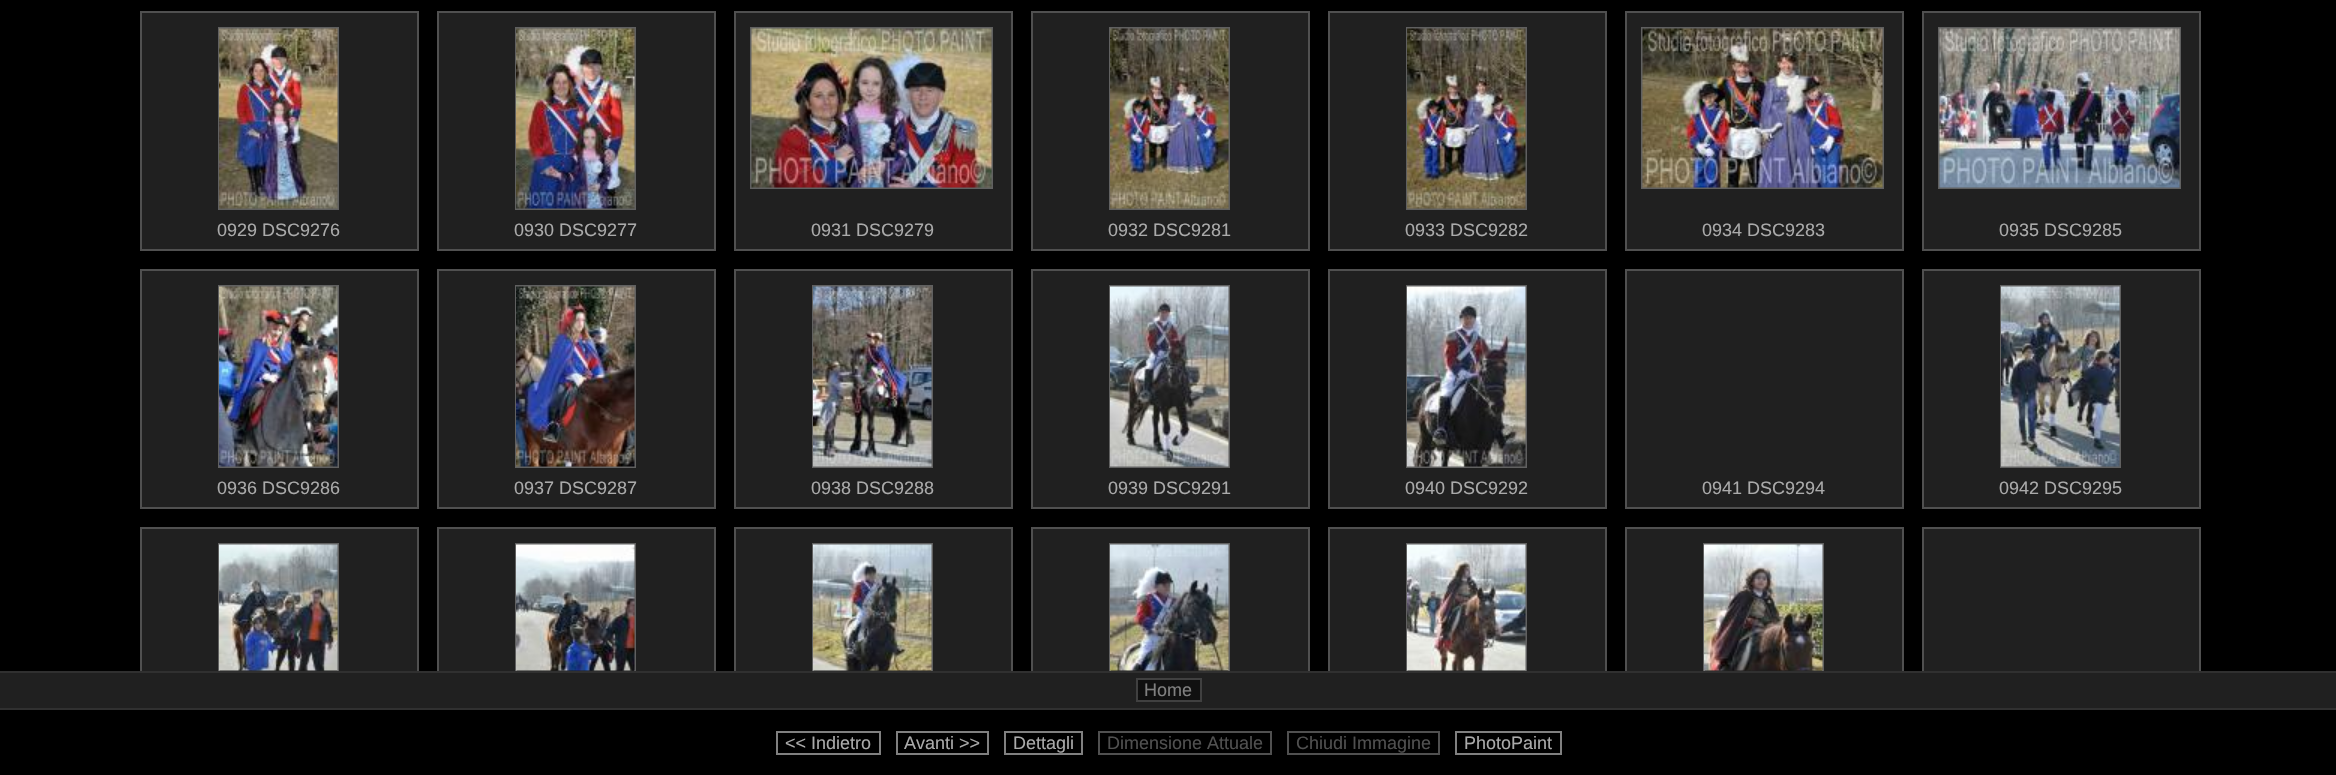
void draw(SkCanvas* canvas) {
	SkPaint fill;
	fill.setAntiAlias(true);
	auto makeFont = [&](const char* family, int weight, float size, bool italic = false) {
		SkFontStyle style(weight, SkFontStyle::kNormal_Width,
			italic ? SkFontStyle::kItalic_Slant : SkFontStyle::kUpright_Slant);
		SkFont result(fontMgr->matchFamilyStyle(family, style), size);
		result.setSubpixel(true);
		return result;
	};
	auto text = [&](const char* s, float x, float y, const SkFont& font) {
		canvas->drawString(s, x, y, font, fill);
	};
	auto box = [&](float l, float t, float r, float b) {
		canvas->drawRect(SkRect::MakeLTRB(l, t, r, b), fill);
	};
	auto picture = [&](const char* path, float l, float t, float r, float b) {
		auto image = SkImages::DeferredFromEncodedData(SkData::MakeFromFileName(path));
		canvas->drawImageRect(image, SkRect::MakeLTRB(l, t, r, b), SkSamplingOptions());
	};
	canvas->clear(0xFF000000);
	fill.setColor(0xFF202020);
	canvas->drawRect(SkRect::MakeLTRB(141, 12, 418, 250), fill);
	fill.setStyle(SkPaint::kStroke_Style);
	fill.setStrokeWidth(2);
	fill.setColor(0xFF505050);
	canvas->drawRect(SkRect::MakeLTRB(141, 12, 418, 250), fill);
	fill.setColor(0xFF606060);
	canvas->drawRect(SkRect::MakeLTRB(219, 28, 338, 209), fill);
	picture("image0.png", 219, 28, 338, 209);
	fill.setStyle(SkPaint::kFill_Style);
	fill.setColor(0xFF202020);
	canvas->drawRect(SkRect::MakeLTRB(438, 12, 715, 250), fill);
	fill.setStyle(SkPaint::kStroke_Style);
	fill.setColor(0xFF505050);
	canvas->drawRect(SkRect::MakeLTRB(438, 12, 715, 250), fill);
	fill.setColor(0xFF606060);
	canvas->drawRect(SkRect::MakeLTRB(516, 28, 635, 209), fill);
	picture("image1.png", 516, 28, 635, 209);
	fill.setStyle(SkPaint::kFill_Style);
	fill.setColor(0xFF202020);
	canvas->drawRect(SkRect::MakeLTRB(735, 12, 1012, 250), fill);
	fill.setStyle(SkPaint::kStroke_Style);
	fill.setColor(0xFF505050);
	canvas->drawRect(SkRect::MakeLTRB(735, 12, 1012, 250), fill);
	fill.setColor(0xFF606060);
	canvas->drawRect(SkRect::MakeLTRB(751, 28, 992, 188), fill);
	picture("image2.png", 751, 28, 992, 188);
	fill.setStyle(SkPaint::kFill_Style);
	fill.setColor(0xFF202020);
	canvas->drawRect(SkRect::MakeLTRB(1032, 12, 1309, 250), fill);
	fill.setStyle(SkPaint::kStroke_Style);
	fill.setColor(0xFF505050);
	canvas->drawRect(SkRect::MakeLTRB(1032, 12, 1309, 250), fill);
	fill.setColor(0xFF606060);
	canvas->drawRect(SkRect::MakeLTRB(1110, 28, 1229, 209), fill);
	picture("image3.png", 1110, 28, 1229, 209);
	fill.setStyle(SkPaint::kFill_Style);
	fill.setColor(0xFF202020);
	canvas->drawRect(SkRect::MakeLTRB(1329, 12, 1606, 250), fill);
	fill.setStyle(SkPaint::kStroke_Style);
	fill.setColor(0xFF505050);
	canvas->drawRect(SkRect::MakeLTRB(1329, 12, 1606, 250), fill);
	fill.setColor(0xFF606060);
	canvas->drawRect(SkRect::MakeLTRB(1407, 28, 1526, 209), fill);
	picture("image4.png", 1407, 28, 1526, 209);
	fill.setStyle(SkPaint::kFill_Style);
	fill.setColor(0xFF202020);
	canvas->drawRect(SkRect::MakeLTRB(1626, 12, 1903, 250), fill);
	fill.setStyle(SkPaint::kStroke_Style);
	fill.setColor(0xFF505050);
	canvas->drawRect(SkRect::MakeLTRB(1626, 12, 1903, 250), fill);
	fill.setColor(0xFF606060);
	canvas->drawRect(SkRect::MakeLTRB(1642, 28, 1883, 188), fill);
	picture("image5.png", 1642, 28, 1883, 188);
	fill.setStyle(SkPaint::kFill_Style);
	fill.setColor(0xFF202020);
	canvas->drawRect(SkRect::MakeLTRB(1923, 12, 2200, 250), fill);
	fill.setStyle(SkPaint::kStroke_Style);
	fill.setColor(0xFF505050);
	canvas->drawRect(SkRect::MakeLTRB(1923, 12, 2200, 250), fill);
	fill.setColor(0xFF606060);
	canvas->drawRect(SkRect::MakeLTRB(1939, 28, 2180, 188), fill);
	picture("image6.png", 1939, 28, 2180, 188);
	fill.setStyle(SkPaint::kFill_Style);
	fill.setColor(0xFF202020);
	canvas->drawRect(SkRect::MakeLTRB(141, 270, 418, 508), fill);
	fill.setStyle(SkPaint::kStroke_Style);
	fill.setColor(0xFF505050);
	canvas->drawRect(SkRect::MakeLTRB(141, 270, 418, 508), fill);
	fill.setColor(0xFF606060);
	canvas->drawRect(SkRect::MakeLTRB(219, 286, 338, 467), fill);
	picture("image7.png", 219, 286, 338, 467);
	fill.setStyle(SkPaint::kFill_Style);
	fill.setColor(0xFF202020);
	canvas->drawRect(SkRect::MakeLTRB(438, 270, 715, 508), fill);
	fill.setStyle(SkPaint::kStroke_Style);
	fill.setColor(0xFF505050);
	canvas->drawRect(SkRect::MakeLTRB(438, 270, 715, 508), fill);
	fill.setColor(0xFF606060);
	canvas->drawRect(SkRect::MakeLTRB(516, 286, 635, 467), fill);
	picture("image8.png", 516, 286, 635, 467);
	fill.setStyle(SkPaint::kFill_Style);
	fill.setColor(0xFF202020);
	canvas->drawRect(SkRect::MakeLTRB(735, 270, 1012, 508), fill);
	fill.setStyle(SkPaint::kStroke_Style);
	fill.setColor(0xFF505050);
	canvas->drawRect(SkRect::MakeLTRB(735, 270, 1012, 508), fill);
	fill.setColor(0xFF606060);
	canvas->drawRect(SkRect::MakeLTRB(813, 286, 932, 467), fill);
	picture("image9.png", 813, 286, 932, 467);
	fill.setStyle(SkPaint::kFill_Style);
	fill.setColor(0xFF202020);
	canvas->drawRect(SkRect::MakeLTRB(1032, 270, 1309, 508), fill);
	fill.setStyle(SkPaint::kStroke_Style);
	fill.setColor(0xFF505050);
	canvas->drawRect(SkRect::MakeLTRB(1032, 270, 1309, 508), fill);
	fill.setColor(0xFF606060);
	canvas->drawRect(SkRect::MakeLTRB(1110, 286, 1229, 467), fill);
	picture("image10.png", 1110, 286, 1229, 467);
	fill.setStyle(SkPaint::kFill_Style);
	fill.setColor(0xFF202020);
	canvas->drawRect(SkRect::MakeLTRB(1329, 270, 1606, 508), fill);
	fill.setStyle(SkPaint::kStroke_Style);
	fill.setColor(0xFF505050);
	canvas->drawRect(SkRect::MakeLTRB(1329, 270, 1606, 508), fill);
	fill.setColor(0xFF606060);
	canvas->drawRect(SkRect::MakeLTRB(1407, 286, 1526, 467), fill);
	picture("image11.png", 1407, 286, 1526, 467);
	fill.setStyle(SkPaint::kFill_Style);
	fill.setColor(0xFF202020);
	canvas->drawRect(SkRect::MakeLTRB(1626, 270, 1903, 508), fill);
	fill.setStyle(SkPaint::kStroke_Style);
	fill.setColor(0xFF505050);
	canvas->drawRect(SkRect::MakeLTRB(1626, 270, 1903, 508), fill);
	fill.setStyle(SkPaint::kFill_Style);
	fill.setColor(0xFF202020);
	canvas->drawRect(SkRect::MakeLTRB(1923, 270, 2200, 508), fill);
	fill.setStyle(SkPaint::kStroke_Style);
	fill.setColor(0xFF505050);
	canvas->drawRect(SkRect::MakeLTRB(1923, 270, 2200, 508), fill);
	fill.setColor(0xFF606060);
	canvas->drawRect(SkRect::MakeLTRB(2001, 286, 2120, 467), fill);
	picture("image12.png", 2001, 286, 2120, 467);
	fill.setStyle(SkPaint::kFill_Style);
	fill.setColor(0xFF202020);
	box(142, 529, 417, 671);
	canvas->save();
	canvas->clipRect(SkRect::MakeLTRB(0, 0, 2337, 671));
	fill.setStyle(SkPaint::kStroke_Style);
	fill.setColor(0xFF505050);
	canvas->drawRect(SkRect::MakeLTRB(141, 528, 418, 766), fill);
	fill.setColor(0xFF606060);
	canvas->drawRect(SkRect::MakeLTRB(219, 544, 338, 725), fill);
	canvas->restore();
	picture("image13.png", 219, 544, 338, 671);
	fill.setStyle(SkPaint::kFill_Style);
	fill.setColor(0xFF202020);
	box(439, 529, 714, 671);
	canvas->save();
	canvas->clipRect(SkRect::MakeLTRB(0, 0, 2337, 671));
	fill.setStyle(SkPaint::kStroke_Style);
	fill.setColor(0xFF505050);
	canvas->drawRect(SkRect::MakeLTRB(438, 528, 715, 766), fill);
	fill.setColor(0xFF606060);
	canvas->drawRect(SkRect::MakeLTRB(516, 544, 635, 725), fill);
	canvas->restore();
	picture("image14.png", 516, 544, 635, 671);
	fill.setStyle(SkPaint::kFill_Style);
	fill.setColor(0xFF202020);
	box(736, 529, 1011, 671);
	canvas->save();
	canvas->clipRect(SkRect::MakeLTRB(0, 0, 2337, 671));
	fill.setStyle(SkPaint::kStroke_Style);
	fill.setColor(0xFF505050);
	canvas->drawRect(SkRect::MakeLTRB(735, 528, 1012, 766), fill);
	fill.setColor(0xFF606060);
	canvas->drawRect(SkRect::MakeLTRB(813, 544, 932, 725), fill);
	canvas->restore();
	picture("image15.png", 813, 544, 932, 671);
	fill.setStyle(SkPaint::kFill_Style);
	fill.setColor(0xFF202020);
	box(1033, 529, 1308, 671);
	canvas->save();
	canvas->clipRect(SkRect::MakeLTRB(0, 0, 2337, 671));
	fill.setStyle(SkPaint::kStroke_Style);
	fill.setColor(0xFF505050);
	canvas->drawRect(SkRect::MakeLTRB(1032, 528, 1309, 766), fill);
	fill.setColor(0xFF606060);
	canvas->drawRect(SkRect::MakeLTRB(1110, 544, 1229, 725), fill);
	canvas->restore();
	picture("image16.png", 1110, 544, 1229, 671);
	fill.setStyle(SkPaint::kFill_Style);
	fill.setColor(0xFF202020);
	box(1330, 529, 1605, 671);
	canvas->save();
	canvas->clipRect(SkRect::MakeLTRB(0, 0, 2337, 671));
	fill.setStyle(SkPaint::kStroke_Style);
	fill.setColor(0xFF505050);
	canvas->drawRect(SkRect::MakeLTRB(1329, 528, 1606, 766), fill);
	fill.setColor(0xFF606060);
	canvas->drawRect(SkRect::MakeLTRB(1407, 544, 1526, 725), fill);
	canvas->restore();
	picture("image17.png", 1407, 544, 1526, 671);
	fill.setStyle(SkPaint::kFill_Style);
	fill.setColor(0xFF202020);
	box(1627, 529, 1902, 671);
	canvas->save();
	canvas->clipRect(SkRect::MakeLTRB(0, 0, 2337, 671));
	fill.setStyle(SkPaint::kStroke_Style);
	fill.setColor(0xFF505050);
	canvas->drawRect(SkRect::MakeLTRB(1626, 528, 1903, 766), fill);
	fill.setColor(0xFF606060);
	canvas->drawRect(SkRect::MakeLTRB(1704, 544, 1823, 725), fill);
	canvas->restore();
	picture("image18.png", 1704, 544, 1823, 671);
	fill.setStyle(SkPaint::kFill_Style);
	fill.setColor(0xFF202020);
	box(1924, 529, 2199, 671);
	canvas->save();
	canvas->clipRect(SkRect::MakeLTRB(0, 0, 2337, 671));
	fill.setStyle(SkPaint::kStroke_Style);
	fill.setColor(0xFF505050);
	canvas->drawRect(SkRect::MakeLTRB(1923, 528, 2200, 766), fill);
	canvas->restore();
	fill.setStyle(SkPaint::kFill_Style);
	fill.setColor(0xFF202020);
	box(0, 673, 2336, 708);
	fill.setColor(0xFF303030);
	box(0, 671, 2336, 673);
	fill.setColor(0xFF101010);
	canvas->drawRect(SkRect::MakeLTRB(1137, 679, 1201, 701), fill);
	fill.setStyle(SkPaint::kStroke_Style);
	fill.setColor(0xFF404040);
	canvas->drawRect(SkRect::MakeLTRB(1137, 679, 1201, 701), fill);
	fill.setStyle(SkPaint::kFill_Style);
	fill.setColor(0xFF303030);
	box(0, 708, 2336, 710);
	fill.setStyle(SkPaint::kStroke_Style);
	fill.setColor(0xFF808080);
	canvas->drawRect(SkRect::MakeLTRB(777, 732, 880, 754), fill);
	canvas->drawRect(SkRect::MakeLTRB(897, 732, 988, 754), fill);
	canvas->drawRect(SkRect::MakeLTRB(1005, 732, 1082, 754), fill);
	fill.setColor(0xFF505050);
	canvas->drawRect(SkRect::MakeLTRB(1099, 732, 1271, 754), fill);
	canvas->drawRect(SkRect::MakeLTRB(1288, 732, 1439, 754), fill);
	fill.setColor(0xFF808080);
	canvas->drawRect(SkRect::MakeLTRB(1456, 732, 1561, 754), fill);
	auto font1 = makeFont("Liberation Sans", 400, 18);
	fill.setStyle(SkPaint::kFill_Style);
	fill.setColor(0xFFAAAAAA);
	text("0929 DSC9276", 217, 236, font1);
	text("0930 DSC9277", 514, 236, font1);
	text("0931 DSC9279", 811, 236, font1);
	text("0932 DSC9281", 1108, 236, font1);
	text("0933 DSC9282", 1405, 236, font1);
	text("0934 DSC9283", 1702, 236, font1);
	text("0935 DSC9285", 1999, 236, font1);
	text("0936 DSC9286", 217, 494, font1);
	text("0937 DSC9287", 514, 494, font1);
	text("0938 DSC9288", 811, 494, font1);
	text("0939 DSC9291", 1108, 494, font1);
	text("0940 DSC9292", 1405, 494, font1);
	text("0941 DSC9294", 1702, 494, font1);
	text("0942 DSC9295", 1999, 494, font1);
	fill.setColor(0xFF808080);
	text("Home", 1144, 696, font1);
	fill.setColor(0xFFAAAAAA);
	text("<< Indietro", 785, 749, font1);
	text("Avanti >>", 904, 749, font1);
	text("Dettagli", 1013, 749, font1);
	fill.setColor(0xFF505050);
	text("Dimensione Attuale", 1107, 749, font1);
	text("Chiudi Immagine", 1296, 749, font1);
	fill.setColor(0xFFAAAAAA);
	text("PhotoPaint", 1464, 749, font1);
}
